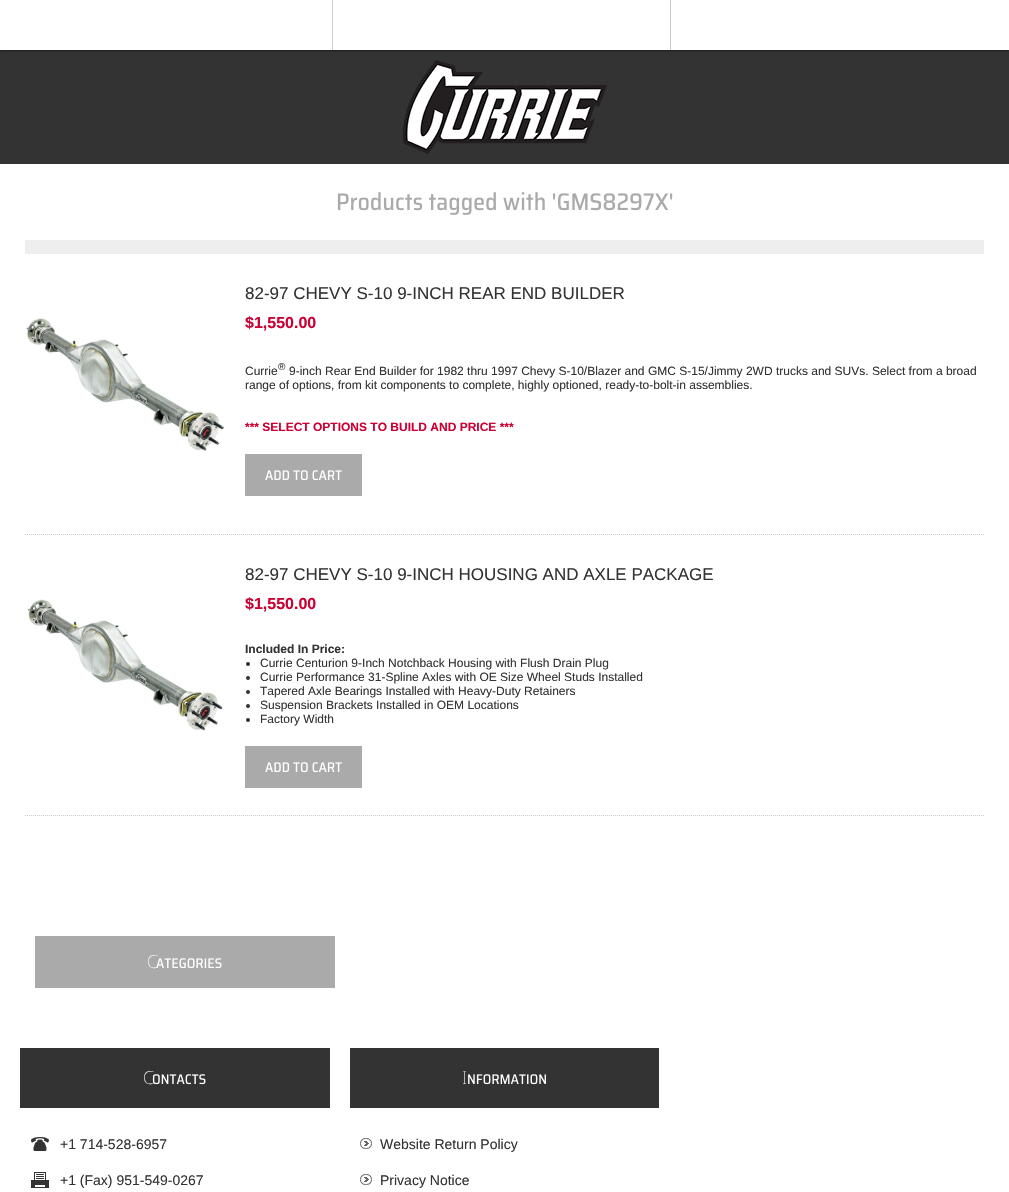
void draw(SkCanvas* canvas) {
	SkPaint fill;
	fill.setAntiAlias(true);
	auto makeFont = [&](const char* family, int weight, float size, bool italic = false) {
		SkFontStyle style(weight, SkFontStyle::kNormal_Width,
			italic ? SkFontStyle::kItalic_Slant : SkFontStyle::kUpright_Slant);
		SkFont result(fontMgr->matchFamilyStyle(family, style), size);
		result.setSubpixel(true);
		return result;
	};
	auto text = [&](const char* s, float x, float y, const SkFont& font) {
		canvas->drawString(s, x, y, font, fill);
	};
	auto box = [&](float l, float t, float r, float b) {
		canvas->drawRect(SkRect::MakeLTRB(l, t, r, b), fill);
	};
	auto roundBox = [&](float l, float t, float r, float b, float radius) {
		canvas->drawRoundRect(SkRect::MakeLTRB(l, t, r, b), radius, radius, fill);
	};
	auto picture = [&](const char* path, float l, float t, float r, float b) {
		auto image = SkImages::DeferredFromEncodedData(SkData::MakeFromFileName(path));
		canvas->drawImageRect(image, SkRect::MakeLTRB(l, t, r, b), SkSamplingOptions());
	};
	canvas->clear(0xFFFFFFFF);
	fill.setColor(0xFF333333);
	box(0, 50, 1009, 164);
	canvas->save();
	canvas->clipRect(SkRect::MakeLTRB(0, 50, 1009, 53));
	fill.setColor(0xBF000000);
	fill.setMaskFilter(SkMaskFilter::MakeBlur(kNormal_SkBlurStyle, 1.5f));
	canvas->drawRect(SkRect::MakeLTRB(0, 0, 1009, 50), fill);
	fill.setMaskFilter(nullptr);
	canvas->restore();
	fill.setColor(0xFFCCCCCC);
	box(332, 0, 333, 50);
	box(670, 0, 671, 50);
	picture("image0.png", 403, 60, 607, 154);
	picture("image1.png", 337, 192, 673, 215);
	fill.setColor(0xFFEEEEEE);
	box(25, 240, 984, 254);
	fill.setStyle(SkPaint::kStroke_Style);
	fill.setStrokeWidth(1);
	fill.setColor(0xFFCCCCCC);
	fill.setPathEffect(SkDashPathEffect::Make({{1, 1}}, 0));
	canvas->drawPath(SkPathBuilder().moveTo(25, 534.5f).lineTo(984, 534.5f).detach(), fill);
	fill.setPathEffect(nullptr);
	picture("image2.png", 26, 318, 224, 451);
	fill.setStyle(SkPaint::kFill_Style);
	fill.setColor(0xFFAAAAAA);
	box(245, 454, 362, 496);
	picture("image3.png", 265, 470, 342, 481);
	fill.setStyle(SkPaint::kStroke_Style);
	fill.setColor(0xFFCCCCCC);
	fill.setPathEffect(SkDashPathEffect::Make({{1, 1}}, 0));
	canvas->drawPath(SkPathBuilder().moveTo(25, 815.5f).lineTo(984, 815.5f).detach(), fill);
	fill.setPathEffect(nullptr);
	picture("image4.png", 28, 599, 223, 731);
	fill.setStyle(SkPaint::kFill_Style);
	fill.setColor(0xFF333333);
	canvas->drawCircle(248, 664, 2, fill);
	canvas->drawCircle(248, 678, 2, fill);
	canvas->drawCircle(248, 692, 2, fill);
	canvas->drawCircle(248, 706, 2, fill);
	canvas->drawCircle(248, 720, 2, fill);
	fill.setColor(0xFFAAAAAA);
	box(245, 746, 362, 788);
	picture("image3.png", 265, 762, 342, 773);
	box(35, 936, 335, 988);
	fill.setColor(0xFF333333);
	box(20, 1048, 330, 1108);
	picture("image7.png", 31, 1137, 49, 1151);
	picture("image8.png", 31, 1172, 49, 1188);
	box(350, 1048, 659, 1108);
	picture("image9.png", 468, 1074, 546, 1085);
	fill.setColor(0xFF666666);
	roundBox(360, 1138, 372, 1149, 5.5f);
	picture("image10.png", 360, 1138, 372, 1149);
	fill.setStyle(SkPaint::kStroke_Style);
	canvas->drawRoundRect(SkRect::MakeLTRB(360.5f, 1138.5f, 371.5f, 1148.5f), 5, 5, fill);
	fill.setStyle(SkPaint::kFill_Style);
	roundBox(360, 1174, 372, 1185, 5.5f);
	picture("image10.png", 360, 1174, 372, 1185);
	fill.setStyle(SkPaint::kStroke_Style);
	canvas->drawRoundRect(SkRect::MakeLTRB(360.5f, 1174.5f, 371.5f, 1184.5f), 5, 5, fill);
	auto font1 = makeFont("Liberation Sans", 400, 17);
	fill.setStyle(SkPaint::kFill_Style);
	fill.setColor(0xFF333333);
	text("82-97 CHEVY S-10 9-INCH REAR END BUILDER", 245, 299, font1);
	auto font2 = makeFont("Liberation Sans", 700, 16);
	fill.setColor(0xFFCC0033);
	text("$1,550.00", 245, 328, font2);
	auto font3 = makeFont("Liberation Sans", 400, 12);
	fill.setColor(0xFF333333);
	text("Currie", 245, 375, font3);
	auto font4 = makeFont("Liberation Sans", 400, 10);
	text("®", 278, 370, font4);
	text("9-inch Rear End Builder for 1982 thru 1997 Chevy S-10/Blazer and GMC S-15/Jimmy 2WD trucks and SUVs. Select from a broad", 289, 375, font3);
	text("range of options, from kit components to complete, highly optioned, ready-to-bolt-in assemblies.", 245, 389, font3);
	auto font5 = makeFont("Liberation Sans", 700, 12);
	fill.setColor(0xFFCC0033);
	text("*** SELECT OPTIONS TO BUILD AND PRICE ***", 245, 431, font5);
	fill.setColor(0xFF333333);
	text("82-97 CHEVY S-10 9-INCH HOUSING AND AXLE PACKAGE", 245, 580, font1);
	fill.setColor(0xFFCC0033);
	text("$1,550.00", 245, 609, font2);
	fill.setColor(0xFF333333);
	text("Included In Price:", 245, 653, font5);
	text("Currie Centurion 9-Inch Notchback Housing with Flush Drain Plug", 260, 667, font3);
	text("Currie Performance 31-Spline Axles with OE Size Wheel Studs Installed", 260, 681, font3);
	text("Tapered Axle Bearings Installed with Heavy-Duty Retainers", 260, 695, font3);
	text("Suspension Brackets Installed in OEM Locations", 260, 709, font3);
	text("Factory Width", 260, 723, font3);
	auto font6 = makeFont("Noto Sans", 100, 18);
	fill.setColor(0xFFFFFFFF);
	text("C", 147, 968, font6);
	picture("image5.png", 156, 958, 222, 969);
	text("C", 143, 1084, font6);
	picture("image6.png", 152, 1074, 206, 1085);
	auto font7 = makeFont("Liberation Sans", 400, 14);
	fill.setColor(0xFF333333);
	text("+1 714-528-6957", 60, 1149, font7);
	text("+1 (Fax) 951-549-0267", 60, 1185, font7);
	fill.setColor(0xFFFFFFFF);
	text("I", 462, 1084, font6);
	fill.setColor(0xFF333333);
	text("Website Return Policy", 380, 1149, font7);
	text("Privacy Notice", 380, 1185, font7);
}
